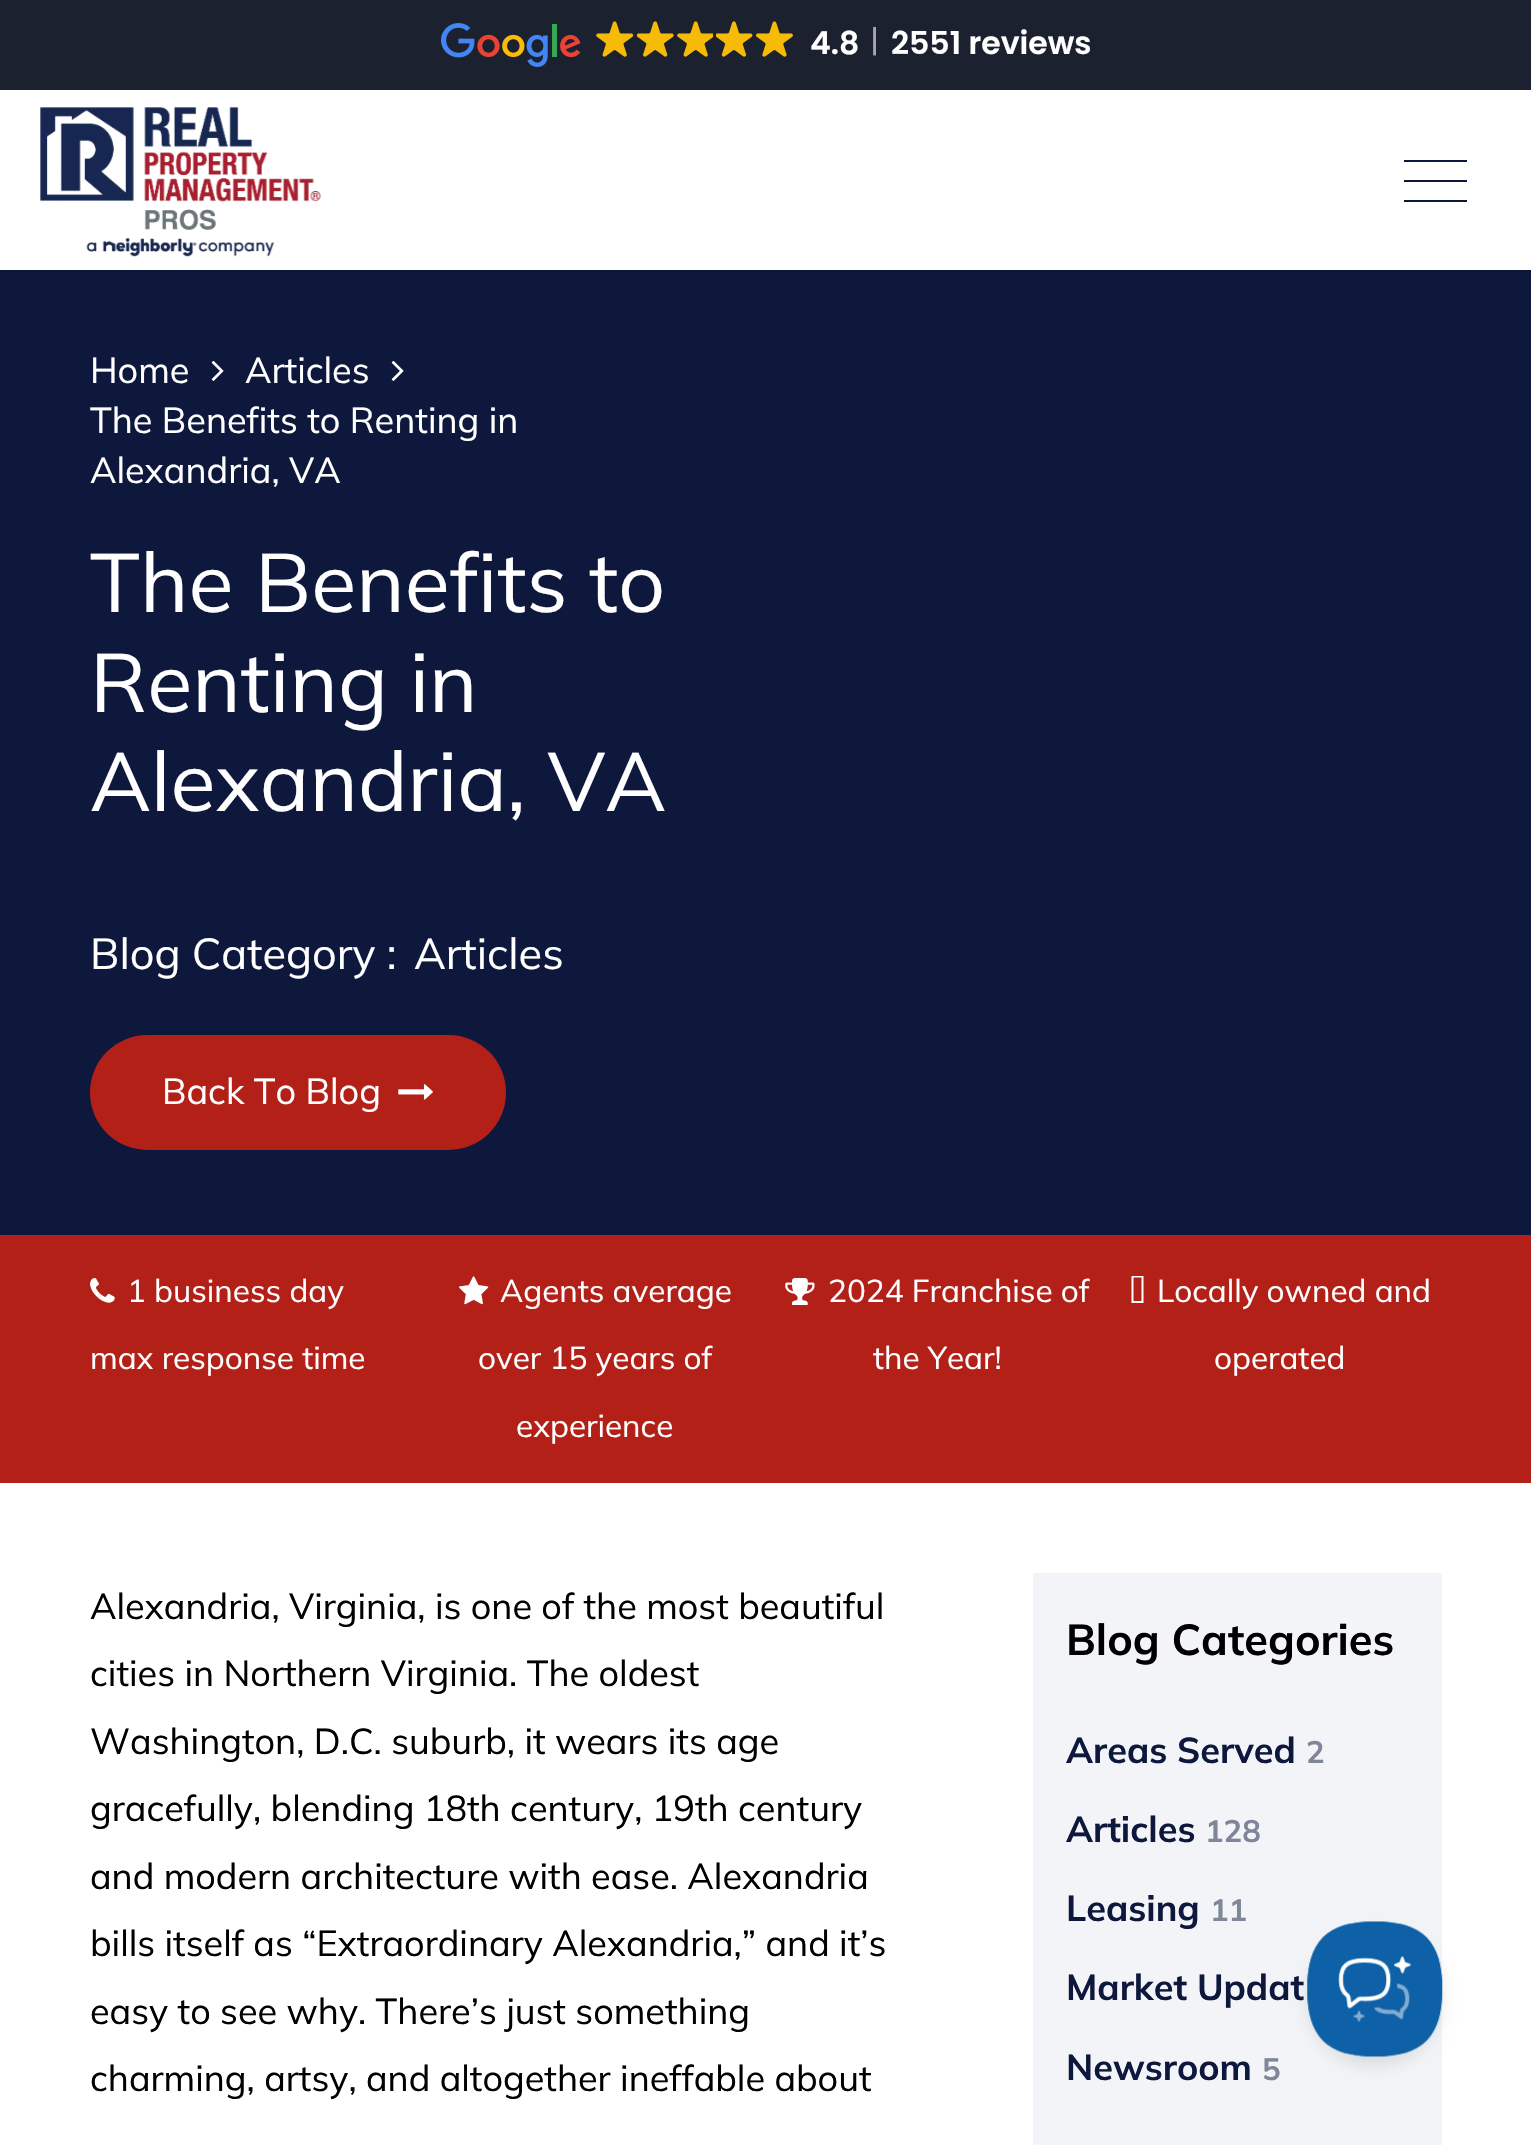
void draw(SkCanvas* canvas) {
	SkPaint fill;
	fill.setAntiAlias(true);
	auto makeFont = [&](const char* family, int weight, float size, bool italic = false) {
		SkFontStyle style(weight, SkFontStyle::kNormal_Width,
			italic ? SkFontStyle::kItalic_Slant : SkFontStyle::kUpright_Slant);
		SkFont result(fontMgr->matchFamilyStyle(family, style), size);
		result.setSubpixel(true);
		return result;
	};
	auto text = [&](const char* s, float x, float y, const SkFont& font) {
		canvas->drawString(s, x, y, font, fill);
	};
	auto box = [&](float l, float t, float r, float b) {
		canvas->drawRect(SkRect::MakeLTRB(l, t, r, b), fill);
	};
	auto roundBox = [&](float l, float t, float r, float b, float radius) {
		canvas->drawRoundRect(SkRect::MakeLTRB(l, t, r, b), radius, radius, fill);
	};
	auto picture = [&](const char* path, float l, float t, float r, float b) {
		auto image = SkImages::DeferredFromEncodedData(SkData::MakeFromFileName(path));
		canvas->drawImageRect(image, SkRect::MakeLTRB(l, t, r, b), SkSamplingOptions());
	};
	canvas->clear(0xFFFFFFFF);
	fill.setColor(0xFF1C2130);
	box(0, 0, 1531, 90);
	picture("image0.png", 441, 23, 581, 67);
	picture("image1.png", 596, 21, 634, 57);
	picture("image2.png", 637, 21, 674, 57);
	picture("image3.png", 677, 21, 713, 57);
	picture("image4.png", 716, 21, 753, 57);
	picture("image5.png", 756, 21, 793, 57);
	fill.setColor(0xFF0D1638);
	box(0, 270, 1531, 272);
	picture("image6.png", 40, 107, 321, 257);
	fill.setColor(0xFF0E183D);
	box(1404, 180, 1467, 182);
	box(1404, 160, 1467, 162);
	box(1404, 200, 1467, 202);
	box(0, 272, 1531, 1235);
	picture("image7.png", 211, 361, 224, 381);
	picture("image7.png", 391, 361, 404, 381);
	fill.setColor(0xFFB32018);
	roundBox(90, 1035, 506, 1150, 57.5f);
	picture("image8.png", 398, 1084, 433, 1100);
	box(0, 1235, 1531, 1483);
	picture("image9.png", 90, 1278, 115, 1303);
	picture("image10.png", 459, 1276, 489, 1305);
	picture("image11.png", 785, 1278, 815, 1305);
	fill.setColor(0xFFFFFFFF);
	canvas->drawPath(SkPathBuilder().moveTo(1133.5f, 1301).lineTo(1133.5f, 1277.5f).lineTo(1141.5f, 1277.5f).lineTo(1141.5f, 1301).close().moveTo(1131.5f, 1303).lineTo(1143.5f, 1303).lineTo(1143.5f, 1276).lineTo(1131.5f, 1276).close().detach(), fill);
	fill.setColor(0xFFF2F4F7);
	box(1033, 1573, 1442, 2145);
	fill.setColor(0x1A000000);
	fill.setMaskFilter(SkMaskFilter::MakeBlur(kNormal_SkBlurStyle, 8));
	canvas->drawRoundRect(SkRect::MakeLTRB(1307, 1931, 1442, 2066), 67.5f, 67.5f, fill);
	fill.setMaskFilter(nullptr);
	picture("image12.png", 1307, 1921, 1443, 2057);
	auto font1 = makeFont("Poppins", 600, 31.5f);
	fill.setColor(0xFFFFFFFF);
	text("4.8", 810, 54, font1);
	auto font2 = makeFont("Poppins", 400, 31.5f);
	fill.setColor(0xFFA4A6AC);
	text("|", 870, 52, font2);
	fill.setColor(0xFFFFFFFF);
	text("2551 reviews", 891, 54, font1);
	auto font3 = makeFont("Mulish", 200, 36);
	text("Home", 90, 383, font3);
	text("Articles", 245, 383, font3);
	text("The Benefits to Renting in", 90, 433, font3);
	text("Alexandria, VA", 90, 483, font3);
	auto font4 = makeFont("Mulish", 200, 82.75f);
	text("The Benefits to", 90, 612, font4);
	text("Renting in", 90, 712, font4);
	text("Alexandria, VA", 90, 811, font4);
	auto font5 = makeFont("Mulish", 200, 43.25f);
	text("Blog Category :", 90, 969, font5);
	text("Articles", 414, 969, font5);
	text("Back To Blog", 162, 1104, font3);
	auto font6 = makeFont("Mulish", 200, 31.5f);
	text("1 business day", 127, 1302, font6);
	text("max response time", 90, 1369, font6);
	text("Agents average", 500, 1302, font6);
	text("over 15 years of", 478, 1369, font6);
	text("experience", 516, 1437, font6);
	text("2024 Franchise of", 828, 1302, font6);
	text("the Year!", 873, 1369, font6);
	text("Locally owned and", 1157, 1302, font6);
	text("operated", 1214, 1369, font6);
	fill.setColor(0xFF000000);
	text("Alexandria, Virginia, is one of the most beautiful", 90, 1619, font3);
	text("cities in Northern Virginia. The oldest", 90, 1686, font3);
	text("Washington, D.C. suburb, it wears its age", 90, 1754, font3);
	text("gracefully, blending 18th century, 19th century", 90, 1821, font3);
	text("and modern architecture with ease. Alexandria", 90, 1889, font3);
	text("bills itself as “Extraordinary Alexandria,” and it’s", 90, 1956, font3);
	text("easy to see why. There’s just something", 90, 2024, font3);
	text("charming, artsy, and altogether ineffable about", 90, 2091, font3);
	auto font7 = makeFont("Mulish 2", 200, 43.25f);
	text("Blog Categories", 1066, 1655, font7);
	auto font8 = makeFont("Mulish 2", 200, 36);
	fill.setColor(0xFF0E183D);
	text("Areas Served", 1066, 1763, font8);
	auto font9 = makeFont("Mulish 2", 200, 31);
	fill.setColor(0xFF80869A);
	text("2", 1306, 1763, font9);
	fill.setColor(0xFF0E183D);
	text("Articles", 1066, 1842, font8);
	fill.setColor(0xFF80869A);
	text("128", 1205, 1842, font9);
	fill.setColor(0xFF0E183D);
	text("Leasing", 1066, 1921, font8);
	fill.setColor(0xFF80869A);
	text("11", 1210, 1921, font9);
	fill.setColor(0xFF0E183D);
	text("Market Updat", 1066, 2000, font8);
	text("Newsroom", 1066, 2080, font8);
	fill.setColor(0xFF80869A);
	text("5", 1262, 2080, font9);
}
